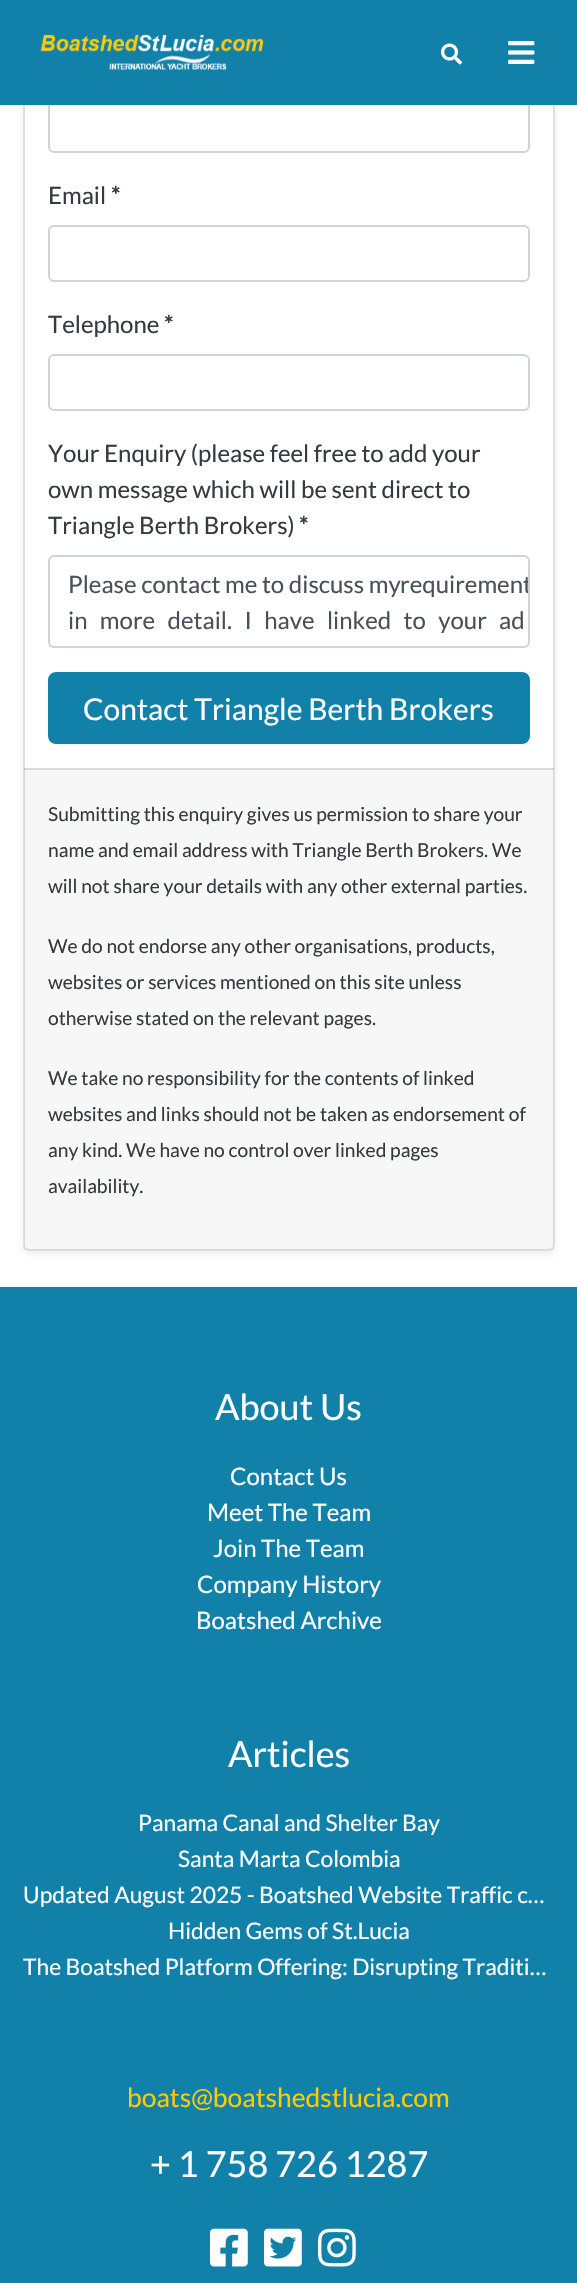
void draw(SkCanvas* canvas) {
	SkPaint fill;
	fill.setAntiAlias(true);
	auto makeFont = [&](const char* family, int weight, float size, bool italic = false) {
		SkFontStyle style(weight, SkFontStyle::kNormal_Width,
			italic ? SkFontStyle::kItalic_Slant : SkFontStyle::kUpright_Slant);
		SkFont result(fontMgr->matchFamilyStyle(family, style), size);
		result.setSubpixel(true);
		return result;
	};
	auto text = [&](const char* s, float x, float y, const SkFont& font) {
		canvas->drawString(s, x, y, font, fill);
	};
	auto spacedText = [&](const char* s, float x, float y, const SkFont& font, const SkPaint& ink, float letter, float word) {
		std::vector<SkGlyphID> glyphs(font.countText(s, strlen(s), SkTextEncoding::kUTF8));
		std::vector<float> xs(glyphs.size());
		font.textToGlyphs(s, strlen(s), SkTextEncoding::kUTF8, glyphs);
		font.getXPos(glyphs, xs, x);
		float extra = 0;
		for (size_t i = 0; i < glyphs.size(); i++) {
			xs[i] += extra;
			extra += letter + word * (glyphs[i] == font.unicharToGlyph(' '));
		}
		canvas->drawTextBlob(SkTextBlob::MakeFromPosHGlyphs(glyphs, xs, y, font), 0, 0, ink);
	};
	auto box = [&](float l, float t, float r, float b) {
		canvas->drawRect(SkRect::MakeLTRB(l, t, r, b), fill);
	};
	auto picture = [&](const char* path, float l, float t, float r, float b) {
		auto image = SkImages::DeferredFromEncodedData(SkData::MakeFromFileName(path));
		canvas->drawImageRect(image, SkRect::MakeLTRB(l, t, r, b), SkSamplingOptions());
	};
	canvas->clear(0xFFFFFFFF);
	fill.setColor(0x12000000);
	fill.setMaskFilter(SkMaskFilter::MakeBlur(kNormal_SkBlurStyle, 3));
	canvas->drawRoundRect(SkRect::MakeLTRB(23, -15, 555, 1254), 6, 6, fill);
	fill.setMaskFilter(nullptr);
	fill.setColor(0xFFFFFFFF);
	canvas->drawRoundRect(SkRect::MakeLTRB(24, -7, 554, 1250), 5, 5, fill);
	fill.setStyle(SkPaint::kStroke_Style);
	fill.setStrokeWidth(2);
	fill.setColor(0xFFDFDFDF);
	canvas->drawRoundRect(SkRect::MakeLTRB(24, -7, 554, 1250), 5, 5, fill);
	fill.setColor(0xFFCED4DA);
	canvas->drawRoundRect(SkRect::MakeLTRB(49, 97, 529, 152), 5, 5, fill);
	fill.setStyle(SkPaint::kFill_Style);
	fill.setColor(0xFF1281AA);
	box(0, 0, 577, 105);
	picture("image0.png", 40, 34, 264, 70);
	picture("image1.png", 441, 43, 462, 65);
	picture("image2.png", 508, 41, 535, 64);
	fill.setStyle(SkPaint::kStroke_Style);
	fill.setColor(0xFFCED4DA);
	canvas->drawRoundRect(SkRect::MakeLTRB(49, 226, 529, 281), 5, 5, fill);
	canvas->drawRoundRect(SkRect::MakeLTRB(49, 355, 529, 410), 5, 5, fill);
	canvas->drawRoundRect(SkRect::MakeLTRB(49, 556, 529, 647), 5, 5, fill);
	fill.setStyle(SkPaint::kFill_Style);
	fill.setColor(0xFF1281AA);
	canvas->drawRoundRect(SkRect::MakeLTRB(49, 673, 529, 743), 7, 7, fill);
	fill.setStyle(SkPaint::kStroke_Style);
	canvas->drawRoundRect(SkRect::MakeLTRB(49, 673, 529, 743), 7, 7, fill);
	fill.setStyle(SkPaint::kFill_Style);
	fill.setColor(0x08000000);
	box(24, 768, 554, 1250);
	fill.setColor(0x1F000000);
	box(24, 768, 554, 770);
	fill.setColor(0xFF1281AA);
	box(0, 1287, 577, 2283);
	picture("image3.png", 210, 2228, 248, 2267);
	picture("image4.png", 264, 2228, 302, 2267);
	picture("image5.png", 318, 2228, 356, 2267);
	auto font1 = makeFont("Lato", 400, 24);
	fill.setColor(0xFF353A40);
	text("Email", 48, 204, font1);
	auto font2 = makeFont("Lato", 700, 24);
	text("*", 111, 204, font2);
	text("Telephone", 48, 333, font1);
	text("*", 164, 333, font2);
	text("Your Enquiry (please feel free to add your", 48, 462, font1);
	text("own message which will be sent direct to", 48, 498, font1);
	text("Triangle Berth Brokers)", 48, 534, font1);
	text("*", 299, 534, font2);
	fill.setColor(0xFF495057);
	text("Please contact me to discuss my", 68, 593, font1);
	canvas->save();
	canvas->clipPath(SkPathBuilder().moveTo(55, 557).lineTo(523, 557).cubicTo(526, 557, 528, 559, 528, 562).lineTo(528, 642).cubicTo(528, 645, 526, 647, 523, 647).lineTo(55, 647).cubicTo(52, 647, 50, 645, 50, 642).lineTo(50, 562).cubicTo(50, 559, 52, 557, 55, 557).close().detach(), true);
	text("requirement", 400, 593, font1);
	canvas->restore();
	spacedText("in more detail. I have linked to your", 68, 629, font1, fill, 0, 7.75f);
	text("ad", 499, 629, font1);
	auto font3 = makeFont("Lato", 400, 30);
	fill.setColor(0xFFFFFFFF);
	text("Contact Triangle Berth Brokers", 83, 720, font3);
	auto font4 = makeFont("Lato", 400, 19.2f);
	fill.setColor(0xFF353A40);
	text("Submitting this enquiry gives us permission to share your", 48, 821, font4);
	text("name and email address with Triangle Berth Brokers. We", 48, 857, font4);
	text("will not share your details with any other external parties.", 48, 893, font4);
	text("We do not endorse any other organisations, products,", 48, 953, font4);
	text("websites or services mentioned on this site unless", 48, 989, font4);
	text("otherwise stated on the relevant pages.", 48, 1025, font4);
	text("We take no responsibility for the contents of linked", 48, 1085, font4);
	text("websites and links should not be taken as endorsement of", 48, 1121, font4);
	text("any kind. We have no control over linked pages", 48, 1157, font4);
	text("availability.", 48, 1193, font4);
	auto font5 = makeFont("Lato", 400, 36);
	fill.setColor(0xFFFFFFFF);
	text("About Us", 215, 1420, font5);
	text("Contact Us", 230, 1485, font1);
	text("Meet The Team", 207, 1521, font1);
	text("Join The Team", 213, 1557, font1);
	text("Company History", 197, 1593, font1);
	text("Boatshed Archive", 196, 1629, font1);
	text("Articles", 228, 1767, font5);
	auto font6 = makeFont("Lato", 400, 22.8f);
	text("Panama Canal and Shelter Bay", 138, 1831, font6);
	text("Santa Marta Colombia", 178, 1867, font6);
	text("Updated August 2025 - Boatshed Website Traffic c…", 23, 1903, font6);
	text("Hidden Gems of St.Lucia", 168, 1939, font6);
	text("The Boatshed Platform Offering: Disrupting Traditi…", 23, 1975, font6);
	auto font7 = makeFont("Lato", 400, 26.4f);
	fill.setColor(0xFFFFCB05);
	text("boats@boatshedstlucia.com", 127, 2107, font7);
	fill.setColor(0xFFFFFFFF);
	text("+ 1 758 726 1287", 150, 2177, font5);
}
